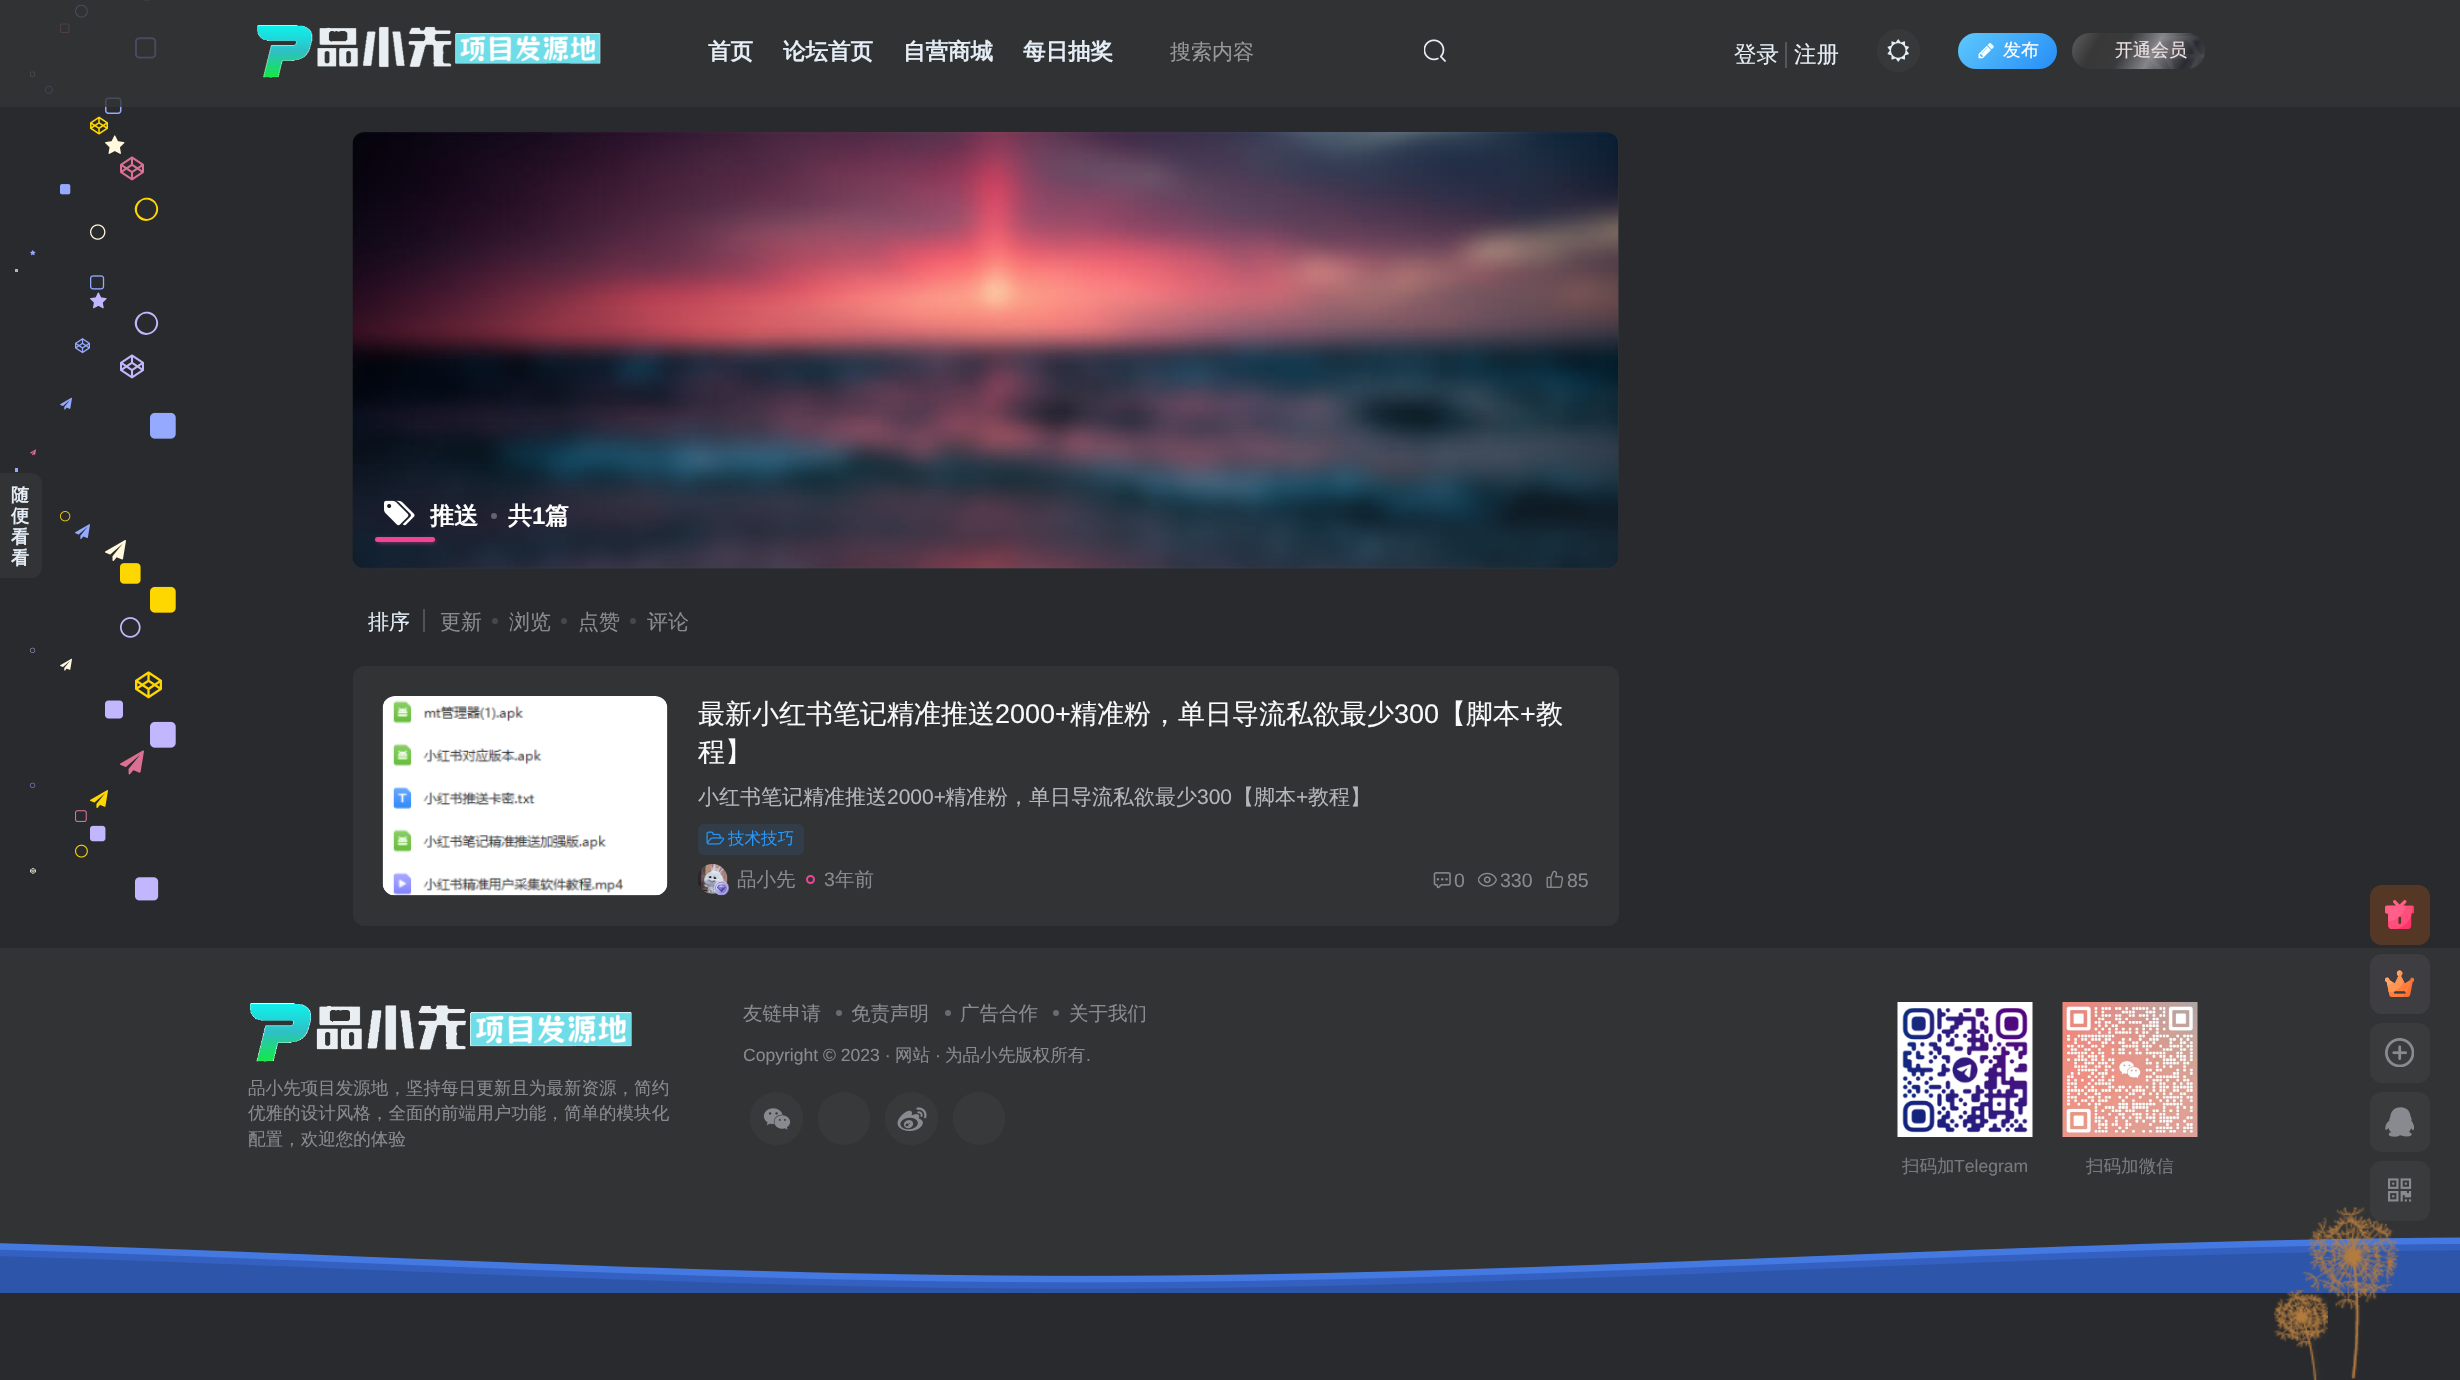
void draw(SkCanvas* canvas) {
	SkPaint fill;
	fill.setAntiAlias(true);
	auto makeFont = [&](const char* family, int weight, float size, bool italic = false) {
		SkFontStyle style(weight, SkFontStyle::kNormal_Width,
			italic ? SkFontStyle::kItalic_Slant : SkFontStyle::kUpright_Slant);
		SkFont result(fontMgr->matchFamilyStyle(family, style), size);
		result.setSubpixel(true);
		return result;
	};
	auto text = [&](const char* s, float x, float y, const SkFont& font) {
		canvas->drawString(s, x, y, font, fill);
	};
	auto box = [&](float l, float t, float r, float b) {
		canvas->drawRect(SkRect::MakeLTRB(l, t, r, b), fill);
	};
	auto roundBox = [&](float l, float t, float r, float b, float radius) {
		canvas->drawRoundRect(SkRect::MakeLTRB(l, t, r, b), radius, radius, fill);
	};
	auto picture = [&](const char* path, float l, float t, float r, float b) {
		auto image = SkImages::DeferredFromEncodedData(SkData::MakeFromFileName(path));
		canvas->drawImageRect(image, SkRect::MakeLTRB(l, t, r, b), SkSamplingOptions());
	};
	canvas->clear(0xFF292A2D);
	picture("image0.png", 143, 0, 150, 1);
	picture("image1.png", 75, 4, 88, 18);
	picture("image2.png", 60, 23, 70, 33);
	picture("image3.png", 135, 37, 157, 59);
	picture("image4.png", 30, 71, 35, 77);
	picture("image5.png", 45, 85, 53, 94);
	picture("image6.png", 105, 97, 122, 114);
	picture("image7.png", 90, 116, 108, 135);
	picture("image8.png", 105, 135, 125, 154);
	picture("image9.png", 120, 156, 144, 181);
	picture("image10.png", 60, 184, 71, 195);
	fill.setColor(0xFFFFD700);
	canvas->drawPath(SkPathBuilder().moveTo(150.5f, 200.5f).cubicTo(139, 195.5f, 131, 213, 143, 218).cubicTo(154.5f, 223, 162, 205.5f, 150.5f, 200.5f).close().moveTo(156.5f, 203.5f).cubicTo(164, 216.5f, 144, 228.5f, 136.5f, 215).cubicTo(129, 202, 149, 190.5f, 156.5f, 203.5f).close().detach(), fill);
	picture("image11.png", 90, 224, 106, 240);
	picture("image12.png", 30, 250, 36, 256);
	fill.setColor(0xFFBBB6A4);
	box(15, 269, 18, 272);
	picture("image13.png", 90, 275, 105, 290);
	picture("image14.png", 90, 292, 107, 309);
	fill.setColor(0xFFC2B7FE);
	canvas->drawPath(SkPathBuilder().moveTo(150.5f, 314.5f).cubicTo(139, 309.5f, 131, 327, 143, 332).cubicTo(154.5f, 337, 162, 319.5f, 150.5f, 314.5f).close().moveTo(156.5f, 317.5f).cubicTo(164, 330.5f, 144, 342.5f, 136.5f, 329).cubicTo(129, 316, 149, 304.5f, 156.5f, 317.5f).close().detach(), fill);
	picture("image15.png", 75, 338, 90, 354);
	picture("image16.png", 120, 354, 144, 379);
	picture("image17.png", 60, 397, 72, 410);
	picture("image18.png", 150, 412, 176, 439);
	picture("image19.png", 30, 449, 36, 456);
	fill.setColor(0xFF95A9FF);
	box(15, 468, 18, 472);
	picture("image20.png", 60, 511, 71, 522);
	picture("image21.png", 75, 524, 90, 540);
	picture("image22.png", 105, 540, 126, 561);
	picture("image23.png", 120, 563, 141, 584);
	picture("image24.png", 150, 586, 176, 613);
	picture("image25.png", 120, 617, 141, 638);
	picture("image26.png", 30, 647, 36, 653);
	picture("image27.png", 60, 658, 72, 671);
	picture("image28.png", 135, 671, 162, 699);
	picture("image29.png", 105, 700, 123, 719);
	picture("image30.png", 150, 721, 176, 748);
	picture("image31.png", 120, 750, 144, 775);
	picture("image32.png", 30, 782, 36, 788);
	picture("image33.png", 90, 790, 108, 808);
	picture("image34.png", 75, 810, 87, 822);
	picture("image35.png", 90, 825, 106, 842);
	picture("image36.png", 75, 844, 88, 858);
	picture("image37.png", 30, 867, 36, 874);
	picture("image38.png", 135, 877, 159, 901);
	fill.setColor(0xCC323335);
	box(0, 0, 2460, 107);
	picture("image39.png", 257, 25, 601, 78);
	picture("image40.png", 1424, 39, 1446, 62);
	fill.setColor(0xFF54575B);
	box(1785, 42, 1787, 68);
	fill.setColor(0xFF37383A);
	canvas->drawCircle(1898.5f, 50.5f, 21.5f, fill);
	picture("image41.png", 1887, 39, 1909, 62);
	{
		const SkColor colors[] = {0xFF59C3FB, 0xFF268DF7};
		const float stops[] = {0.1f, 1};
		const SkPoint ends[] = {{1973, 17}, {2041, 85}};
		fill.setShader(SkGradientShader::MakeLinear(ends, colors, stops, 2, SkTileMode::kClamp));
		fill.setAlpha(255);
	}
	roundBox(1958, 33, 2057, 69, 18);
	picture("image42.png", 1978, 43, 1994, 59);
	{
		const SkColor colors[] = {0xFF4C4D51, 0xFF2A2A31, 0xFF85858A, 0xFF393A3C, 0xFF393838, 0xFF5E5F62};
		const float stops[] = {0, 0.15f, 0.4f, 0.6f, 0.8f, 1};
		const SkPoint ends[] = {{2196, 84}, {2080, 18}};
		fill.setShader(SkGradientShader::MakeLinear(ends, colors, stops, 6, SkTileMode::kClamp));
		fill.setAlpha(255);
	}
	roundBox(2072, 33, 2205, 69, 18);
	fill.setShader(nullptr);
	fill.setColor(0xFF323335);
	canvas->drawPath(SkPathBuilder().moveTo(0, 473).lineTo(31, 473).cubicTo(37, 473, 42, 478, 42, 484).lineTo(42, 567).cubicTo(42, 573, 37, 578, 31, 578).lineTo(0, 578).close().detach(), fill);
	roundBox(353, 132, 1619, 569, 12);
	picture("image44.png", 352, 132, 1619, 569);
	{
		const SkColor colors[] = {0x661D2931, 0x001D2931};
		const float stops[] = {0.14f, 0.38f};
		const SkPoint ends[] = {{986, 569}, {986, 132}};
		fill.setShader(SkGradientShader::MakeLinear(ends, colors, stops, 2, SkTileMode::kClamp));
		fill.setAlpha(255);
	}
	roundBox(353, 132, 1619, 569, 12);
	picture("image45.png", 384, 500, 415, 526);
	fill.setShader(nullptr);
	fill.setColor(0xFF63636E);
	canvas->drawCircle(494, 516, 3, fill);
	fill.setColor(0xFFF04494);
	fill.setMaskFilter(SkMaskFilter::MakeBlur(kNormal_SkBlurStyle, 2));
	canvas->drawRoundRect(SkRect::MakeLTRB(378, 540, 435, 542), 1, 1, fill);
	fill.setMaskFilter(nullptr);
	roundBox(375, 537, 435, 542, 2.5f);
	fill.setColor(0xFF4F5155);
	box(423, 609, 425, 632);
	fill.setColor(0xFF46474A);
	canvas->drawCircle(495, 621, 3, fill);
	canvas->drawCircle(564, 621, 3, fill);
	canvas->drawCircle(633, 621, 3, fill);
	fill.setColor(0xFF323335);
	roundBox(353, 666, 1619, 926, 12);
	picture("image46.png", 382, 696, 668, 896);
	fill.setColor(0xFF313D48);
	roundBox(698, 824, 804, 855, 6);
	picture("image47.png", 706, 831, 724, 845);
	picture("image48.png", 698, 864, 728, 894);
	picture("image49.png", 714, 881, 729, 896);
	fill.setStyle(SkPaint::kStroke_Style);
	fill.setStrokeWidth(2);
	fill.setColor(0xFFF04494);
	canvas->drawCircle(810.5f, 879.5f, 3.5f, fill);
	picture("image50.png", 1433, 872, 1451, 889);
	picture("image51.png", 1478, 872, 1497, 887);
	picture("image52.png", 1546, 870, 1563, 888);
	fill.setStyle(SkPaint::kFill_Style);
	fill.setColor(0xFF323335);
	box(0, 948, 2460, 1276);
	fill.setColor(0xFF686B6F);
	canvas->drawCircle(839, 1013, 3, fill);
	canvas->drawCircle(948, 1013, 3, fill);
	canvas->drawCircle(1056, 1013, 3, fill);
	fill.setColor(0xFF38393B);
	canvas->drawCircle(776.5f, 1118.5f, 26.5f, fill);
	picture("image53.png", 763, 1108, 791, 1130);
	roundBox(818, 1092, 870, 1145, 26);
	canvas->drawCircle(911.5f, 1118.5f, 26.5f, fill);
	picture("image54.png", 897, 1107, 927, 1131);
	roundBox(953, 1092, 1005, 1145, 26);
	picture("image55.png", 250, 1003, 632, 1062);
	picture("image56.png", 1897, 1002, 2033, 1137);
	picture("image57.png", 2062, 1002, 2198, 1137);
	fill.setColor(0xFF543825);
	roundBox(2370, 885, 2430, 945, 12);
	picture("image58.png", 2385, 900, 2414, 929);
	fill.setColor(0xFF3D3D42);
	roundBox(2370, 954, 2430, 1014, 12);
	picture("image59.png", 2385, 970, 2414, 997);
	fill.setColor(0xFF3A3B3C);
	roundBox(2370, 1023, 2430, 1083, 12);
	picture("image60.png", 2385, 1038, 2414, 1067);
	roundBox(2370, 1092, 2430, 1152, 12);
	picture("image61.png", 2385, 1107, 2415, 1137);
	roundBox(2370, 1161, 2430, 1221, 12);
	picture("image62.png", 2388, 1178, 2412, 1202);
	picture("image65.png", 0, 1237, 2460, 1293);
	picture("image63.png", 2274, 1290, 2328, 1380);
	picture("image64.png", 2302, 1207, 2399, 1379);
	auto font1 = makeFont("WenQuanYi Zen Hei", 700, 22.5f);
	fill.setColor(0xFFE5EEF7);
	text("首页", 708, 59, font1);
	text("论坛首页", 783, 59, font1);
	text("自营商城", 903, 59, font1);
	text("每日抽奖", 1023, 59, font1);
	auto font2 = makeFont("WenQuanYi Zen Hei", 500, 21);
	fill.setColor(0xFF999999);
	text("搜索内容", 1170, 59, font2);
	auto font3 = makeFont("WenQuanYi Zen Hei", 500, 22.5f);
	fill.setColor(0xFFE5EEF7);
	text("登录", 1734, 62, font3);
	text("注册", 1794, 62, font3);
	auto font4 = makeFont("WenQuanYi Zen Hei", 500, 18);
	fill.setColor(0xFFFFFFFF);
	text("发布", 2003, 56, font4);
	fill.setColor(0xFFECE0E0);
	text("开通会员", 2115, 56, font4);
	picture("image43.png", 2147, 36, 2205, 69);
	auto font5 = makeFont("WenQuanYi Zen Hei", 700, 18);
	fill.setColor(0xFFE5EEF7);
	text("随", 11, 501, font5);
	text("便", 11, 522, font5);
	text("看", 11, 543, font5);
	text("看", 11, 564, font5);
	auto font6 = makeFont("WenQuanYi Zen Hei", 700, 24);
	fill.setColor(0xFFFFFFFF);
	text("推送", 430, 524, font6);
	text("共", 508, 524, font6);
	auto font7 = makeFont("Liberation Sans", 700, 24);
	text("1", 532, 524, font7);
	text("篇", 545, 524, font6);
	fill.setColor(0xFFE5EEF7);
	text("排序", 368, 629, font2);
	fill.setColor(0xFF888A8F);
	text("更新", 440, 629, font2);
	text("浏览", 509, 629, font2);
	text("点赞", 578, 629, font2);
	text("评论", 647, 629, font2);
	auto font8 = makeFont("WenQuanYi Zen Hei", 500, 27);
	fill.setColor(0xFFF8FAFC);
	text("最新小红书笔记精准推送", 698, 723, font8);
	auto font9 = makeFont("Liberation Sans", 400, 27);
	text("2000+", 995, 723, font9);
	text("精准粉，单日导流私欲最少", 1070, 723, font8);
	text("300", 1394, 723, font9);
	text("【脚本", 1439, 723, font8);
	text("+", 1520, 723, font9);
	text("教", 1536, 723, font8);
	text("程】", 698, 761, font8);
	fill.setColor(0xFFB4B6BB);
	text("小红书笔记精准推送", 698, 804, font2);
	auto font10 = makeFont("Liberation Sans", 400, 21);
	text("2000+", 887, 804, font10);
	text("精准粉，单日导流私欲最少", 945, 804, font2);
	text("300", 1197, 804, font10);
	text("【脚本", 1233, 804, font2);
	text("+", 1296, 804, font10);
	text("教程】", 1308, 804, font2);
	auto font11 = makeFont("WenQuanYi Zen Hei", 500, 16.5f);
	fill.setColor(0xFF2997F7);
	text("技术技巧", 728, 844, font11);
	auto font12 = makeFont("WenQuanYi Zen Hei", 500, 19.5f);
	fill.setColor(0xFF888A8F);
	text("品小先", 737, 886, font12);
	auto font13 = makeFont("Liberation Sans", 400, 19.5f);
	text("3", 824, 886, font13);
	text("年前", 835, 886, font12);
	text("0", 1454, 887, font13);
	text("330", 1500, 887, font13);
	text("85", 1567, 887, font13);
	text("友链申请", 743, 1020, font12);
	text("免责声明", 851, 1020, font12);
	text("广告合作", 960, 1020, font12);
	text("关于我们", 1069, 1020, font12);
	auto font14 = makeFont("Liberation Sans", 400, 17.55f);
	text("Copyright © 2023 ·", 743, 1061, font14);
	auto font15 = makeFont("WenQuanYi Zen Hei", 500, 17.55f);
	text("网站", 895, 1061, font15);
	text("·", 935, 1061, font14);
	text("为品小先版权所有", 945, 1061, font15);
	text(".", 1086, 1061, font14);
	text("品小先项目发源地，坚持每日更新且为最新资源，简约", 248, 1094, font15);
	text("优雅的设计风格，全面的前端用户功能，简单的模块化", 248, 1119, font15);
	text("配置，欢迎您的体验", 248, 1145, font15);
	fill.setColor(0xFF77797D);
	text("扫码加", 1902, 1172, font15);
	text("Telegram", 1954, 1172, font14);
	text("扫码加微信", 2086, 1172, font15);
}
